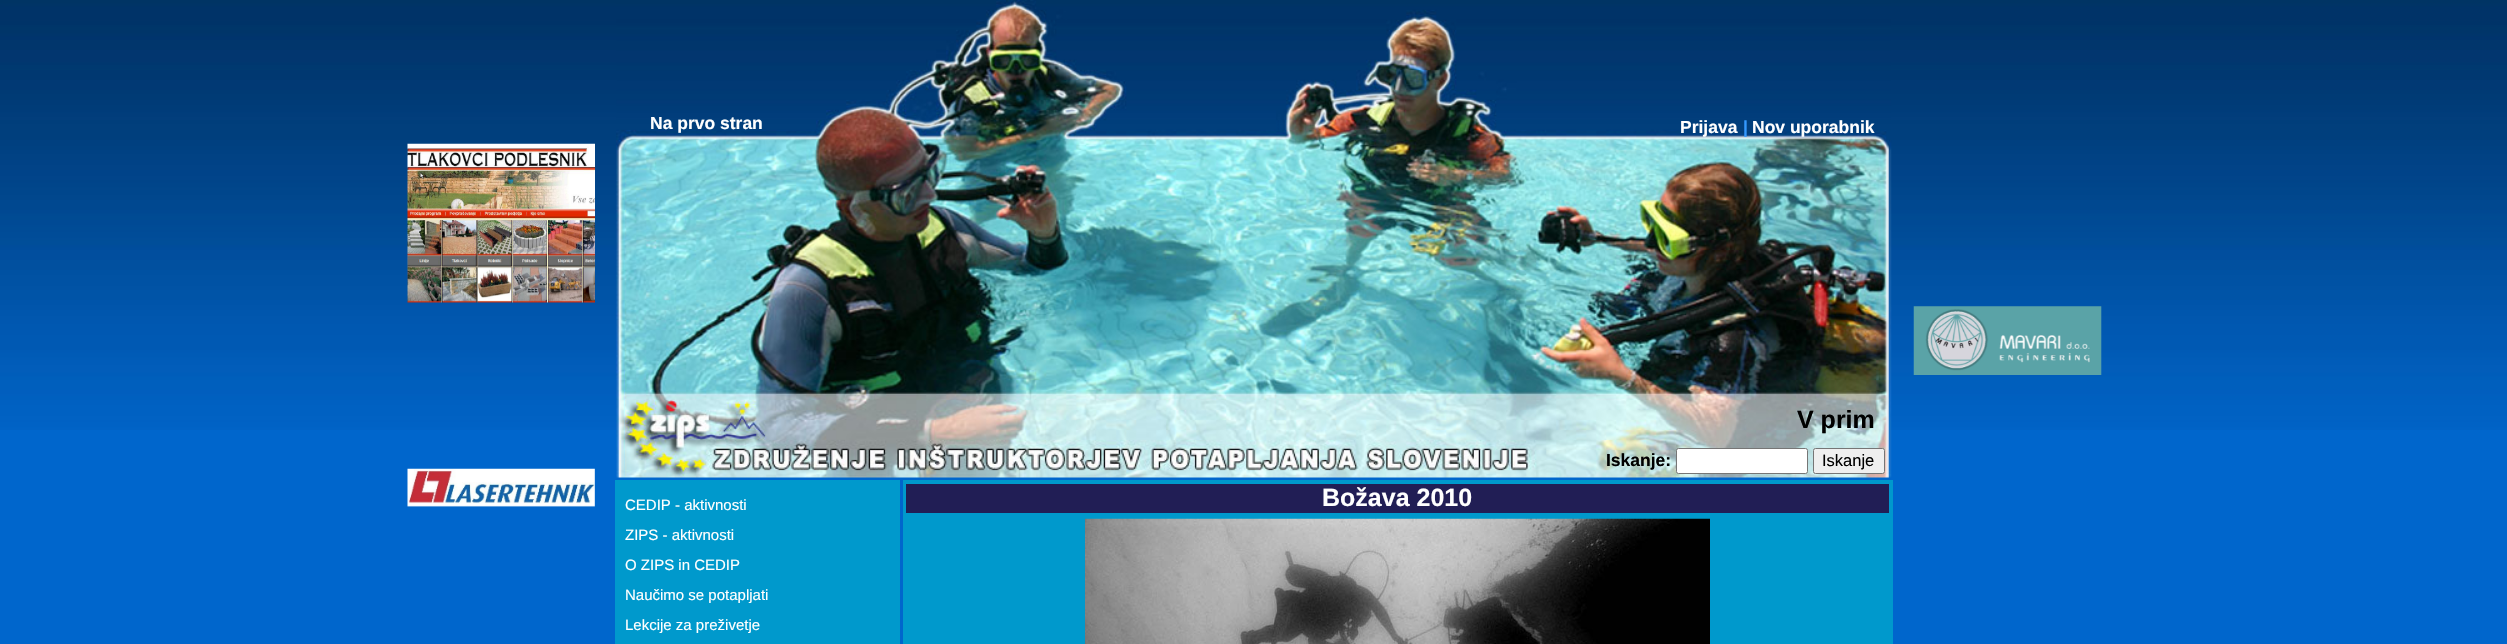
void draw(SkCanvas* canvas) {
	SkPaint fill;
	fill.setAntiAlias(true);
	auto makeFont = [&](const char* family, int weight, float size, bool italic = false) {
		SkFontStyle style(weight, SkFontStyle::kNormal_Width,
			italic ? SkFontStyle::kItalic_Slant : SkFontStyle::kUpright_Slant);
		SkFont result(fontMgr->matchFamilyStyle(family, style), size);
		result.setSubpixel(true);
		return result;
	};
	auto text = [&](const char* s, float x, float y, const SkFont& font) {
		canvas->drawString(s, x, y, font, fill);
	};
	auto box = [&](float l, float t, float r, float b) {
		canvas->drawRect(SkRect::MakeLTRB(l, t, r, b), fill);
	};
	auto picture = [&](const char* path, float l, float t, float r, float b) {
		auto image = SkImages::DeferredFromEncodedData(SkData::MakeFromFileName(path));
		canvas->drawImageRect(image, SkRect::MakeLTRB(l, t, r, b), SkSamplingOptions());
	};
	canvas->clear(0xFF0066CC);
	picture("image0.png", 0, 0, 2507, 430);
	picture("image1.png", 616, 0, 1892, 478);
	fill.setColor(0xFFFFFFFF);
	canvas->drawRoundRect(SkRect::MakeLTRB(1676.5f, 448.5f, 1807.5f, 473.5f), 2, 2, fill);
	fill.setStyle(SkPaint::kStroke_Style);
	fill.setStrokeWidth(1);
	fill.setColor(0xFF767676);
	canvas->drawRoundRect(SkRect::MakeLTRB(1676.5f, 448.5f, 1807.5f, 473.5f), 2, 2, fill);
	fill.setStyle(SkPaint::kFill_Style);
	fill.setColor(0xFFEFEFEF);
	canvas->drawRoundRect(SkRect::MakeLTRB(1813.5f, 448.5f, 1884.5f, 473.5f), 2, 2, fill);
	fill.setStyle(SkPaint::kStroke_Style);
	fill.setColor(0xFF767676);
	canvas->drawRoundRect(SkRect::MakeLTRB(1813.5f, 448.5f, 1884.5f, 473.5f), 2, 2, fill);
	picture("image2.png", 407, 143, 595, 303);
	picture("image3.png", 1913, 306, 2102, 375);
	picture("image4.png", 407, 468, 595, 507);
	fill.setStyle(SkPaint::kFill_Style);
	fill.setColor(0xFF0099CC);
	box(903, 480, 1893, 644);
	fill.setColor(0xFF211E55);
	box(906, 484, 1889, 513);
	picture("image5.png", 1085, 518, 1710, 644);
	fill.setColor(0xFF0099CC);
	box(615, 480, 900, 644);
	auto font1 = makeFont("Liberation Sans", 700, 17.5f);
	fill.setColor(0xFFFFFFFF);
	text("Na prvo stran", 650, 129, font1);
	text("Prijava", 1680, 133, font1);
	fill.setColor(0xFF3399FF);
	text("|", 1743, 133, font1);
	fill.setColor(0xFFFFFFFF);
	text("Nov uporabnik", 1752, 133, font1);
	auto font2 = makeFont("Liberation Sans", 700, 25);
	fill.setColor(0xFF000000);
	text("V prim", 1797, 428, font2);
	text("Iskanje:", 1606, 466, font1);
	auto font3 = makeFont("Liberation Sans", 400, 16.5f);
	text("Iskanje", 1822, 466, font3);
	fill.setColor(0xFFFFFFFF);
	text("Božava 2010", 1322, 506, font2);
	auto font4 = makeFont("Liberation Sans", 400, 15);
	text("CEDIP - aktivnosti", 625, 510, font4);
	text("ZIPS - aktivnosti", 625, 540, font4);
	text("O ZIPS in CEDIP", 625, 570, font4);
	text("Naučimo se potapljati", 625, 600, font4);
	text("Lekcije za preživetje", 625, 630, font4);
}
